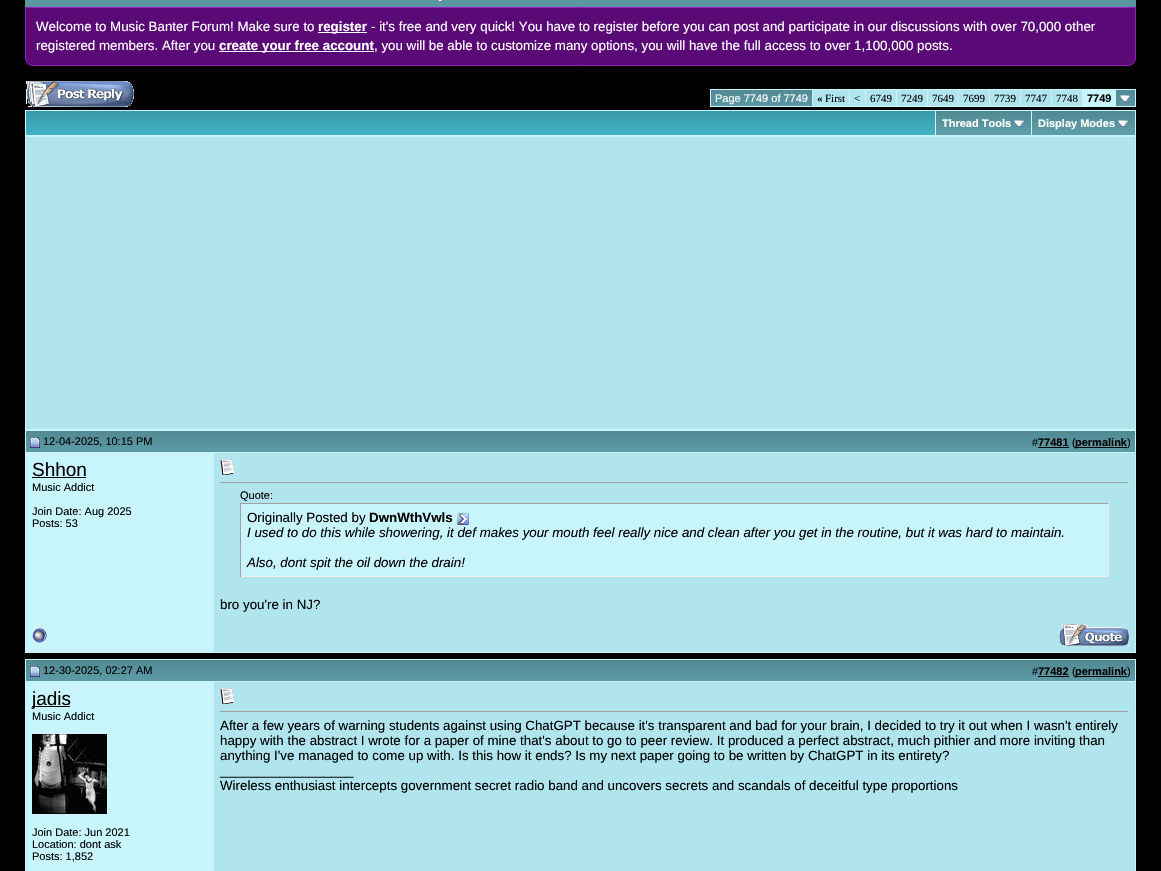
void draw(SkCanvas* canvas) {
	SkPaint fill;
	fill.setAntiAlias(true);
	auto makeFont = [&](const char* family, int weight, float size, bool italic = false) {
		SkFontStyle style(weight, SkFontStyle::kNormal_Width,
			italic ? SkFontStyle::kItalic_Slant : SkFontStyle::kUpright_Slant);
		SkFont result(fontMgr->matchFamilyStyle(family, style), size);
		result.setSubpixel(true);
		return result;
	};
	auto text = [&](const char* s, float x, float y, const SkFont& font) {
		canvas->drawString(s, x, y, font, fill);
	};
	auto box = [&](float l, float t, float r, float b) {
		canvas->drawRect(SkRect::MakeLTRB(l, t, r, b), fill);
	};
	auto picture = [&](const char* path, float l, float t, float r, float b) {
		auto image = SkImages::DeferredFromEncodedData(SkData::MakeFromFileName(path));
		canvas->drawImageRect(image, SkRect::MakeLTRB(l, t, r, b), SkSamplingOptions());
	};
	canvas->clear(0xFF000000);
	fill.setColor(0xFF5996A0);
	box(25, 0, 1136, 7);
	picture("image0.png", 438, 0, 443, 2);
	fill.setColor(0xFF590A76);
	canvas->drawPath(SkPathBuilder().moveTo(25.5f, 7.5f).lineTo(1135.5f, 7.5f).lineTo(1135.5f, 58).cubicTo(1135.5f, 62, 1132, 65.5f, 1128, 65.5f).lineTo(33, 65.5f).cubicTo(29, 65.5f, 25.5f, 62, 25.5f, 58).close().detach(), fill);
	fill.setStyle(SkPaint::kStroke_Style);
	fill.setStrokeWidth(1);
	fill.setColor(0xFF9423BE);
	canvas->drawPath(SkPathBuilder().moveTo(25.5f, 7.5f).lineTo(1135.5f, 7.5f).lineTo(1135.5f, 58).cubicTo(1135.5f, 62, 1132, 65.5f, 1128, 65.5f).lineTo(33, 65.5f).cubicTo(29, 65.5f, 25.5f, 62, 25.5f, 58).close().detach(), fill);
	fill.setStyle(SkPaint::kFill_Style);
	fill.setColor(0xFFFFFFFF);
	box(318, 32, 367, 33);
	box(219, 51, 374, 52);
	picture("image1.png", 26, 81, 134, 107);
	fill.setColor(0xFFC8F4FB);
	box(710, 89, 1136, 107);
	picture("image2.png", 711, 90, 812, 106);
	fill.setColor(0xFFB0E5EE);
	box(813, 90, 849, 106);
	box(850, 90, 865, 106);
	box(866, 90, 896, 106);
	box(897, 90, 927, 106);
	box(928, 90, 958, 106);
	box(959, 90, 989, 106);
	box(990, 90, 1020, 106);
	box(1021, 90, 1051, 106);
	box(1052, 90, 1082, 106);
	picture("image3.png", 1116, 90, 1135, 106);
	picture("image4.png", 1120, 95, 1131, 102);
	fill.setColor(0xFFC8F4FB);
	box(25, 110, 1136, 430);
	picture("image5.png", 26, 111, 935, 135);
	fill.setColor(0xFF5D9DA8);
	box(936, 130, 1031, 135);
	picture("image6.png", 936, 111, 1031, 130);
	picture("image7.png", 1014, 120, 1025, 127);
	box(1032, 130, 1135, 135);
	picture("image8.png", 1032, 111, 1135, 130);
	picture("image9.png", 1118, 120, 1129, 127);
	fill.setColor(0xFFB0E5EE);
	box(26, 137, 1135, 429);
	fill.setColor(0xFFC8F4FB);
	box(25, 452, 214, 653);
	picture("image10.png", 26, 431, 214, 452);
	box(25, 430, 1136, 431);
	box(25, 430, 26, 453);
	picture("image11.png", 30, 437, 40, 448);
	picture("image12.png", 214, 431, 1135, 452);
	box(1135, 430, 1136, 653);
	box(214, 452, 1136, 453);
	fill.setColor(0xFF000000);
	box(1038, 447, 1069, 448);
	box(1075, 447, 1127, 448);
	box(32, 477, 86, 478);
	fill.setColor(0xFFB0E5EE);
	box(214, 453, 1135, 652);
	picture("image13.png", 220, 459, 235, 475);
	fill.setColor(0xFF9F9F9F);
	box(220, 482, 1129, 483);
	fill.setColor(0xFFEEEEEE);
	box(1128, 482, 1129, 483);
	fill.setColor(0xFFC8F4FB);
	box(241, 504, 1108, 576);
	fill.setColor(0xFF9F9F9F);
	box(240, 503, 1109, 504);
	fill.setColor(0xFFEEEEEE);
	box(1108, 503, 1109, 577);
	box(240, 576, 1109, 577);
	fill.setColor(0xFF9F9F9F);
	box(240, 503, 241, 577);
	picture("image14.png", 457, 513, 469, 525);
	picture("image15.png", 32, 628, 47, 643);
	fill.setColor(0xFFC8F4FB);
	box(214, 652, 1136, 653);
	picture("image16.png", 1059, 624, 1129, 646);
	box(25, 681, 214, 871);
	picture("image10.png", 26, 660, 214, 681);
	box(25, 659, 1136, 660);
	box(25, 659, 26, 682);
	picture("image11.png", 30, 666, 40, 677);
	picture("image12.png", 214, 660, 1135, 681);
	box(1135, 659, 1136, 868);
	box(214, 681, 1136, 682);
	fill.setColor(0xFF000000);
	box(1038, 676, 1069, 677);
	box(1075, 676, 1127, 677);
	box(32, 706, 70, 707);
	picture("image17.png", 32, 734, 107, 814);
	fill.setColor(0xFFB0E5EE);
	box(214, 682, 1135, 868);
	picture("image13.png", 220, 688, 235, 704);
	fill.setColor(0xFF9F9F9F);
	box(220, 711, 1129, 712);
	fill.setColor(0xFFEEEEEE);
	box(1128, 711, 1129, 712);
	fill.setColor(0xFFB0E5EE);
	box(214, 868, 1136, 871);
	fill.setColor(0xFFC8F4FB);
	box(1135, 868, 1136, 871);
	auto font1 = makeFont("Liberation Sans", 400, 13.33f);
	fill.setColor(0xFFFFFFFF);
	text("Welcome to Music Banter Forum! Make sure to", 36, 31, font1);
	auto font2 = makeFont("Liberation Sans", 700, 13.33f);
	text("register", 318, 31, font2);
	text("- it's free and very quick! You have to register before you can post and participate in our discussions with over 70,000 other", 371, 31, font1);
	text("registered members. After you", 36, 50, font1);
	text("create your free account", 219, 50, font2);
	text(", you will be able to customize many options, you will have the full access to over 1,100,000 posts.", 374, 50, font1);
	auto font3 = makeFont("Liberation Sans", 400, 11);
	text("Page 7749 of 7749", 715, 102, font3);
	auto font4 = makeFont("Liberation Serif", 700, 11);
	fill.setColor(0xFF000000);
	text("«", 817, 102, font4);
	auto font5 = makeFont("Liberation Serif", 400, 11);
	text("First", 825, 102, font5);
	text("<", 854, 102, font5);
	text("6749", 870, 102, font5);
	text("7249", 901, 102, font5);
	text("7649", 932, 102, font5);
	text("7699", 963, 102, font5);
	text("7739", 994, 102, font5);
	text("7747", 1025, 102, font5);
	text("7748", 1056, 102, font5);
	auto font6 = makeFont("Liberation Sans", 700, 11);
	text("7749", 1087, 102, font6);
	fill.setColor(0xFFFFFFFF);
	text("Thread Tools", 942, 127, font6);
	text("Display Modes", 1038, 127, font6);
	fill.setColor(0xFF000000);
	text("12-04-2025, 10:15 PM", 43, 445, font3);
	text("#", 1032, 446, font3);
	text("77481", 1038, 446, font6);
	text("(", 1072, 446, font3);
	text("permalink", 1075, 446, font6);
	text(")", 1127, 446, font3);
	auto font7 = makeFont("Liberation Sans", 400, 19);
	text("Shhon", 32, 476, font7);
	text("Music Addict", 32, 491, font3);
	text("Join Date: Aug 2025", 32, 515, font3);
	text("Posts: 53", 32, 527, font3);
	text("Quote:", 240, 499, font3);
	text("Originally Posted by", 247, 522, font1);
	text("DwnWthVwls", 369, 522, font2);
	auto font8 = makeFont("Liberation Sans", 400, 13.33f, true);
	text("I used to do this while showering, it def makes your mouth feel really nice and clean after you get in the routine, but it was hard to maintain.", 247, 537, font8);
	text("Also, dont spit the oil down the drain!", 247, 567, font8);
	text("bro you're in NJ?", 220, 609, font1);
	text("12-30-2025, 02:27 AM", 43, 674, font3);
	text("#", 1032, 675, font3);
	text("77482", 1038, 675, font6);
	text("(", 1072, 675, font3);
	text("permalink", 1075, 675, font6);
	text(")", 1127, 675, font3);
	text("jadis", 32, 705, font7);
	text("Music Addict", 32, 720, font3);
	text("Join Date: Jun 2021", 32, 836, font3);
	text("Location: dont ask", 32, 848, font3);
	text("Posts: 1,852", 32, 860, font3);
	text("After a few years of warning students against using ChatGPT because it's transparent and bad for your brain, I decided to try it out when I wasn't entirely", 220, 730, font1);
	text("happy with the abstract I wrote for a paper of mine that's about to go to peer review. It produced a perfect abstract, much pithier and more inviting than", 220, 745, font1);
	text("anything I've managed to come up with. Is this how it ends? Is my next paper going to be written by ChatGPT in its entirety?", 220, 760, font1);
	text("__________________", 220, 775, font1);
	text("Wireless enthusiast intercepts government secret radio band and uncovers secrets and scandals of deceitful type proportions", 220, 790, font1);
}
